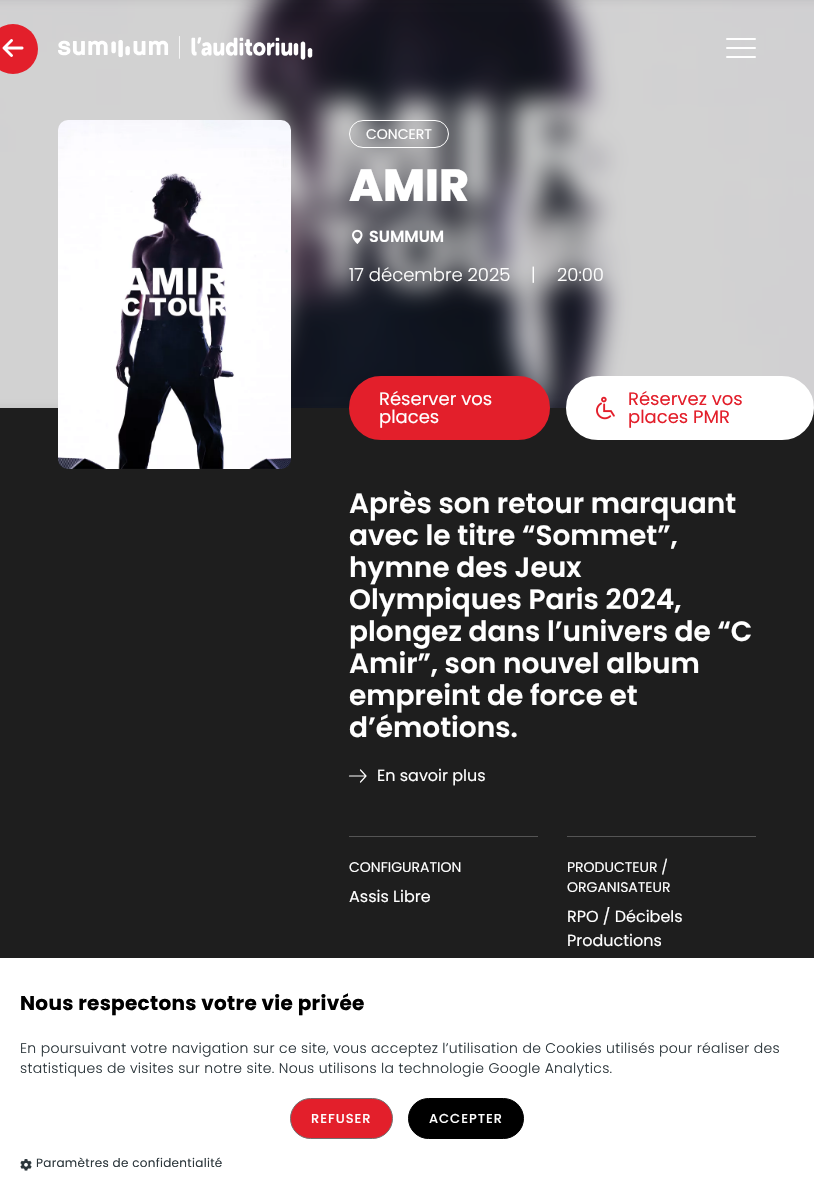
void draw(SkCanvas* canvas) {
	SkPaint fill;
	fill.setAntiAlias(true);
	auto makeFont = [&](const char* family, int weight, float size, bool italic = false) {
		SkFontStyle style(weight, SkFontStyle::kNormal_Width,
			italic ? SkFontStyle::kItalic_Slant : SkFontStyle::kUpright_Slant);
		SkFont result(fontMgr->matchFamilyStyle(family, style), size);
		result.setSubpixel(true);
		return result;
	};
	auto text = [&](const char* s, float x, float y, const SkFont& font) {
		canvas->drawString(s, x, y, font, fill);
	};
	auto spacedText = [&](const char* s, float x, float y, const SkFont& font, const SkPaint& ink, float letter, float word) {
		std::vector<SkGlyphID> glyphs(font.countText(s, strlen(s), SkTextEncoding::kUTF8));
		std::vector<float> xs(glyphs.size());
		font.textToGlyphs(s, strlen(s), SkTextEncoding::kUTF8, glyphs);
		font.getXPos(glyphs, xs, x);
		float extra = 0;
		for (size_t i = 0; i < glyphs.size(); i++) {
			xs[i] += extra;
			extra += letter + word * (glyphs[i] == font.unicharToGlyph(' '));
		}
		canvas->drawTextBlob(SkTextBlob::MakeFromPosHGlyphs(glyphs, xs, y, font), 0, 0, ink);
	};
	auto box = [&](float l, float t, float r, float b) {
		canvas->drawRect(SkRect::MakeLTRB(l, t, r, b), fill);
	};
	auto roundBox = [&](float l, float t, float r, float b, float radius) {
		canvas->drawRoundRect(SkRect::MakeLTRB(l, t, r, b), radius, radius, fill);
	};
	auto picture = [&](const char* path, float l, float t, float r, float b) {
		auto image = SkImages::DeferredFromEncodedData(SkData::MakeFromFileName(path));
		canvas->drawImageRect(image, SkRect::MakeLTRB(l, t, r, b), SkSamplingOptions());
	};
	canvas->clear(0xFF1E1E1E);
	picture("image2.png", 0, 0, 814, 408);
	picture("image0.png", 58, 36, 313, 60);
	fill.setColor(0xFFFFFFFF);
	roundBox(726, 38, 756, 40, 1);
	roundBox(726, 47, 756, 49, 1);
	roundBox(726, 56, 756, 58, 1);
	fill.setColor(0xFFE31F2B);
	canvas->drawCircle(13, 49, 25, fill);
	picture("image1.png", 2, 39, 24, 57);
	picture("image3.png", 58, 120, 291, 469);
	fill.setStyle(SkPaint::kStroke_Style);
	fill.setStrokeWidth(1);
	fill.setColor(0xFFFFFFFF);
	canvas->drawRoundRect(SkRect::MakeLTRB(349.5f, 120.5f, 448.5f, 147.5f), 13.5f, 13.5f, fill);
	picture("image4.png", 352, 229, 363, 244);
	fill.setStyle(SkPaint::kFill_Style);
	fill.setColor(0xFFE31F2B);
	canvas->drawRoundRect(SkRect::MakeLTRB(350, 377, 549, 439), 31, 31, fill);
	fill.setStyle(SkPaint::kStroke_Style);
	fill.setStrokeWidth(2);
	canvas->drawRoundRect(SkRect::MakeLTRB(350, 377, 549, 439), 31, 31, fill);
	fill.setStyle(SkPaint::kFill_Style);
	fill.setColor(0xFFFFFFFF);
	canvas->drawRoundRect(SkRect::MakeLTRB(567, 377, 813, 439), 31, 31, fill);
	fill.setStyle(SkPaint::kStroke_Style);
	canvas->drawRoundRect(SkRect::MakeLTRB(567, 377, 813, 439), 31, 31, fill);
	picture("image5.png", 596, 396, 615, 420);
	fill.setStrokeWidth(1.2f);
	fill.setStrokeCap(SkPaint::kRound_Cap);
	fill.setStrokeJoin(SkPaint::kRound_Join);
	canvas->drawPath(SkPathBuilder().moveTo(360.5f, 770).lineTo(366, 776).lineTo(360.5f, 782).moveTo(349.5f, 776).lineTo(365, 776).detach(), fill);
	fill.setStyle(SkPaint::kFill_Style);
	fill.setColor(0xFF545454);
	box(349, 836, 538, 837);
	box(567, 836, 756, 837);
	fill.setColor(0xFFFFFFFF);
	box(0, 958, 814, 1192);
	fill.setColor(0xFFE31F2B);
	canvas->drawRoundRect(SkRect::MakeLTRB(290.5f, 1098.5f, 392.5f, 1138.5f), 20, 20, fill);
	fill.setStyle(SkPaint::kStroke_Style);
	fill.setStrokeWidth(1);
	fill.setStrokeCap(SkPaint::kButt_Cap);
	fill.setStrokeJoin(SkPaint::kMiter_Join);
	fill.setColor(0xFF707070);
	canvas->drawRoundRect(SkRect::MakeLTRB(290.5f, 1098.5f, 392.5f, 1138.5f), 20, 20, fill);
	fill.setStyle(SkPaint::kFill_Style);
	fill.setColor(0xFF000000);
	canvas->drawRoundRect(SkRect::MakeLTRB(408.5f, 1098.5f, 523.5f, 1138.5f), 20, 20, fill);
	fill.setStyle(SkPaint::kStroke_Style);
	canvas->drawRoundRect(SkRect::MakeLTRB(408.5f, 1098.5f, 523.5f, 1138.5f), 20, 20, fill);
	picture("image6.png", 20, 1159, 32, 1171);
	auto font1 = makeFont("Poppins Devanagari", 400, 14);
	fill.setStyle(SkPaint::kFill_Style);
	fill.setColor(0xFFFFFFFF);
	text("CONCERT", 366, 139, font1);
	auto font2 = makeFont("Poppins Devanagari", 800, 45);
	text("AMIR", 349, 201, font2);
	auto font3 = makeFont("Poppins Devanagari", 600, 16);
	text("SUMMUM", 369, 242, font3);
	auto font4 = makeFont("Poppins Devanagari", 300, 18);
	text("17 décembre 2025", 349, 281, font4);
	text("|", 531, 281, font4);
	text("20:00", 557, 281, font4);
	auto font5 = makeFont("Poppins Devanagari", 400, 18);
	text("Réserver vos", 379, 405, font5);
	text("places", 379, 423, font5);
	fill.setColor(0xFFE31F2B);
	text("Réservez vos", 628, 405, font5);
	text("places PMR", 628, 423, font5);
	auto font6 = makeFont("Poppins Devanagari", 600, 28);
	fill.setColor(0xFFFFFFFF);
	text("Après son retour marquant", 349, 513, font6);
	text("avec le titre “Sommet”,", 349, 545, font6);
	text("hymne des Jeux", 349, 577, font6);
	text("Olympiques Paris 2024,", 349, 609, font6);
	text("plongez dans l’univers de “C", 349, 641, font6);
	text("Amir”, son nouvel album", 349, 673, font6);
	text("empreint de force et", 349, 705, font6);
	text("d’émotions.", 349, 737, font6);
	auto font7 = makeFont("Poppins Devanagari", 400, 16);
	text("En savoir plus", 377, 781, font7);
	text("CONFIGURATION", 349, 872, font1);
	text("Assis Libre", 349, 902, font7);
	text("PRODUCTEUR /", 567, 872, font1);
	text("ORGANISATEUR", 567, 892, font1);
	text("RPO / Décibels", 567, 922, font7);
	text("Productions", 567, 946, font7);
	auto font8 = makeFont("Poppins Devanagari", 700, 20);
	fill.setColor(0xFF000000);
	spacedText("Nous respectons votre vie privée", 20, 1010, font8, fill, 0.3f, 0);
	auto font9 = makeFont("Poppins Devanagari", 300, 14);
	fill.setColor(0xFF2D373C);
	spacedText("En poursuivant votre navigation sur ce site, vous acceptez l’utilisation de Cookies utilisés pour réaliser des", 20, 1053, font9, fill, 0.3f, 0);
	spacedText("statistiques de visites sur notre site. Nous utilisons la technologie Google Analytics.", 20, 1073, font9, fill, 0.3f, 0);
	auto font10 = makeFont("Poppins Devanagari", 500, 13);
	fill.setColor(0xFFFFFFFF);
	spacedText("REFUSER", 311, 1123, font10, fill, 1, 0);
	spacedText("ACCEPTER", 429, 1123, font10, fill, 1, 0);
	auto font11 = makeFont("Poppins Devanagari", 400, 12);
	fill.setColor(0xFF2D373C);
	spacedText("Paramètres de confidentialité", 36, 1167, font11, fill, 0.3f, 0);
}
